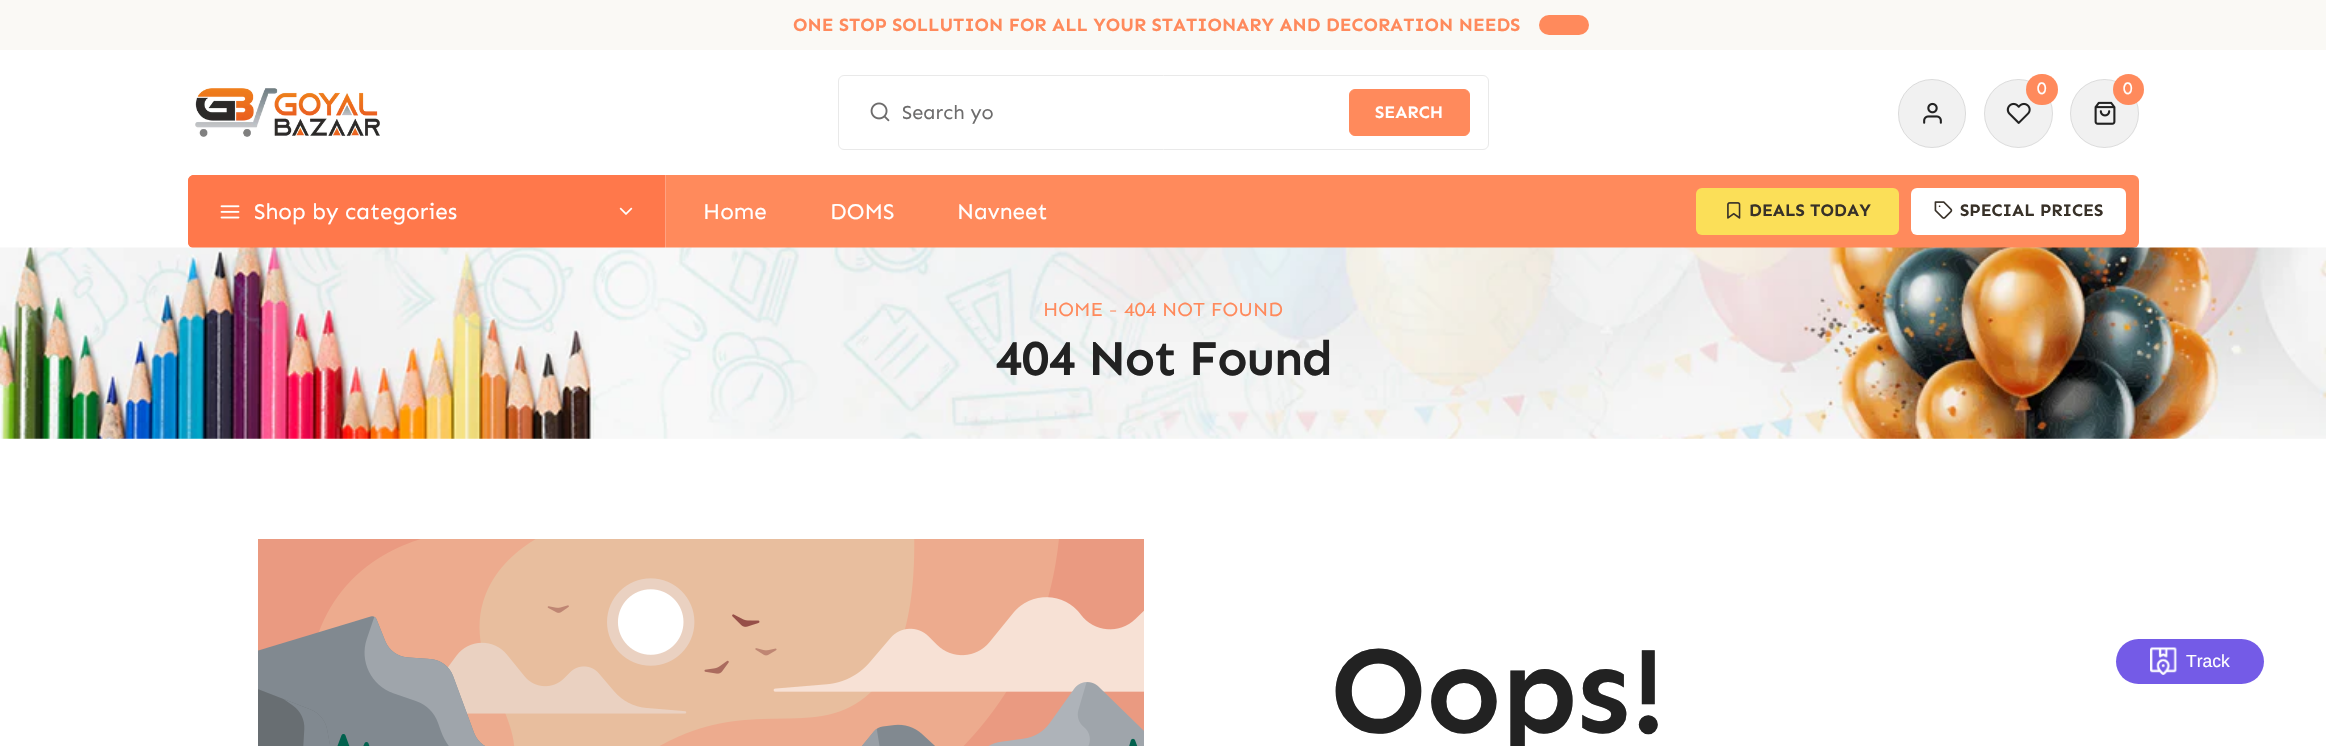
void draw(SkCanvas* canvas) {
	SkPaint fill;
	fill.setAntiAlias(true);
	auto makeFont = [&](const char* family, int weight, float size, bool italic = false) {
		SkFontStyle style(weight, SkFontStyle::kNormal_Width,
			italic ? SkFontStyle::kItalic_Slant : SkFontStyle::kUpright_Slant);
		SkFont result(fontMgr->matchFamilyStyle(family, style), size);
		result.setSubpixel(true);
		return result;
	};
	auto text = [&](const char* s, float x, float y, const SkFont& font) {
		canvas->drawString(s, x, y, font, fill);
	};
	auto spacedText = [&](const char* s, float x, float y, const SkFont& font, const SkPaint& ink, float letter, float word) {
		std::vector<SkGlyphID> glyphs(font.countText(s, strlen(s), SkTextEncoding::kUTF8));
		std::vector<float> xs(glyphs.size());
		font.textToGlyphs(s, strlen(s), SkTextEncoding::kUTF8, glyphs);
		font.getXPos(glyphs, xs, x);
		float extra = 0;
		for (size_t i = 0; i < glyphs.size(); i++) {
			xs[i] += extra;
			extra += letter + word * (glyphs[i] == font.unicharToGlyph(' '));
		}
		canvas->drawTextBlob(SkTextBlob::MakeFromPosHGlyphs(glyphs, xs, y, font), 0, 0, ink);
	};
	auto box = [&](float l, float t, float r, float b) {
		canvas->drawRect(SkRect::MakeLTRB(l, t, r, b), fill);
	};
	auto roundBox = [&](float l, float t, float r, float b, float radius) {
		canvas->drawRoundRect(SkRect::MakeLTRB(l, t, r, b), radius, radius, fill);
	};
	auto picture = [&](const char* path, float l, float t, float r, float b) {
		auto image = SkImages::DeferredFromEncodedData(SkData::MakeFromFileName(path));
		canvas->drawImageRect(image, SkRect::MakeLTRB(l, t, r, b), SkSamplingOptions());
	};
	canvas->clear(0xFFFFFFFF);
	fill.setColor(0xFFFAF9F5);
	box(0, 0, 2326, 50);
	fill.setColor(0xFFFF8A5C);
	roundBox(1539, 15, 1589, 35, 10);
	picture("image0.png", 195, 88, 380, 137);
	fill.setStyle(SkPaint::kStroke_Style);
	fill.setStrokeWidth(1);
	fill.setColor(0xFFE9E9E9);
	canvas->drawRoundRect(SkRect::MakeLTRB(838.5f, 75.5f, 1488.5f, 149.5f), 5.5f, 5.5f, fill);
	picture("image1.png", 870, 102, 890, 122);
	fill.setStyle(SkPaint::kFill_Style);
	fill.setColor(0xFFFF8A5C);
	canvas->drawRoundRect(SkRect::MakeLTRB(1349.5f, 89.5f, 1469.5f, 135.5f), 5.5f, 5.5f, fill);
	fill.setStyle(SkPaint::kStroke_Style);
	canvas->drawRoundRect(SkRect::MakeLTRB(1349.5f, 89.5f, 1469.5f, 135.5f), 5.5f, 5.5f, fill);
	fill.setStyle(SkPaint::kFill_Style);
	fill.setColor(0xFFF1F1F1);
	roundBox(1898, 79, 1966, 148, 34);
	fill.setStyle(SkPaint::kStroke_Style);
	fill.setColor(0x1A222222);
	canvas->drawRoundRect(SkRect::MakeLTRB(1898.5f, 79.5f, 1965.5f, 147.5f), 33.5f, 33.5f, fill);
	picture("image2.png", 1923, 102, 1942, 124);
	fill.setStyle(SkPaint::kFill_Style);
	fill.setColor(0xFFF1F1F1);
	canvas->drawCircle(2018.5f, 113.5f, 34.5f, fill);
	fill.setStyle(SkPaint::kStroke_Style);
	fill.setColor(0x1A222222);
	canvas->drawCircle(2018.5f, 113.5f, 34, fill);
	picture("image3.png", 2006, 102, 2031, 124);
	fill.setStyle(SkPaint::kFill_Style);
	fill.setColor(0xFFFF8A5C);
	roundBox(2026, 74, 2058, 105, 15.5f);
	fill.setColor(0xFFF1F1F1);
	canvas->drawCircle(2104.5f, 113.5f, 34.5f, fill);
	fill.setStyle(SkPaint::kStroke_Style);
	fill.setColor(0x1A222222);
	canvas->drawCircle(2104.5f, 113.5f, 34, fill);
	picture("image4.png", 2094, 101, 2116, 125);
	fill.setStyle(SkPaint::kFill_Style);
	fill.setColor(0xFFFF8A5C);
	canvas->drawCircle(2128.5f, 89.5f, 15.5f, fill);
	roundBox(188, 175, 2139, 248, 6);
	fill.setColor(0xFFFF784B);
	canvas->drawPath(SkPathBuilder().moveTo(194, 175).lineTo(666, 175).lineTo(666, 248).lineTo(194, 248).cubicTo(190.5f, 248, 188, 245.5f, 188, 242).lineTo(188, 181).cubicTo(188, 177.5f, 190.5f, 175, 194, 175).close().detach(), fill);
	fill.setColor(0xFFFFA181);
	box(665, 175, 666, 248);
	picture("image5.png", 220, 205, 240, 219);
	picture("image6.png", 619, 207, 633, 215);
	fill.setColor(0xFFFBDF58);
	roundBox(1696, 188, 1899, 235, 6);
	picture("image7.png", 1727, 202, 1741, 219);
	fill.setColor(0xFFFFFFFF);
	roundBox(1911, 188, 2126, 235, 6);
	picture("image8.png", 1934, 201, 1953, 219);
	picture("image9.png", 0, 247, 2326, 439);
	picture("image10.png", 258, 539, 1144, 746);
	fill.setColor(0xFF745BE7);
	roundBox(2116, 639, 2264, 684, 22.5f);
	picture("image11.png", 2150, 647, 2177, 675);
	auto font1 = makeFont("Sen", 700, 18.75f);
	fill.setColor(0xFFFF8A5C);
	text("ONE STOP SOLLUTION FOR ALL YOUR STATIONARY AND DECORATION NEEDS", 793, 31, font1);
	auto font2 = makeFont("Sen", 400, 20);
	fill.setColor(0xFF6D6C6C);
	text("Search yo", 902, 119, font2);
	auto font3 = makeFont("Sen", 600, 17.5f);
	fill.setColor(0xFFFFFFFF);
	text("SEARCH", 1375, 118, font3);
	auto font4 = makeFont("Sen", 400, 17.5f);
	text("0", 2037, 94, font4);
	text("0", 2123, 94, font4);
	auto font5 = makeFont("Sen", 400, 22.5f);
	text("Shop by categories", 254, 219, font5);
	text("Home", 703, 219, font5);
	text("DOMS", 830, 219, font5);
	text("Navneet", 957, 219, font5);
	auto font6 = makeFont("Sen", 700, 17.5f);
	fill.setColor(0xFF383128);
	text("DEALS TODAY", 1749, 216, font6);
	text("SPECIAL PRICES", 1960, 216, font6);
	fill.setColor(0xFFFF8A5C);
	text("HOME", 1043, 316, font2);
	fill.setColor(0xFFF9B398);
	text("-", 1109, 316, font2);
	fill.setColor(0xFFFF8A5C);
	text("404 NOT FOUND", 1124, 316, font2);
	auto font7 = makeFont("Sen", 600, 50);
	fill.setColor(0xFF222222);
	spacedText("404 Not Found", 995, 375, font7, fill, -1.25f, 0);
	auto font8 = makeFont("Sen", 600, 125);
	spacedText("Oops!", 1330, 732, font8, fill, -1.25f, 0);
	auto font9 = makeFont("Liberation Sans", 400, 17.5f);
	fill.setColor(0xFFFFFFFF);
	text("Track", 2186, 667, font9);
}
